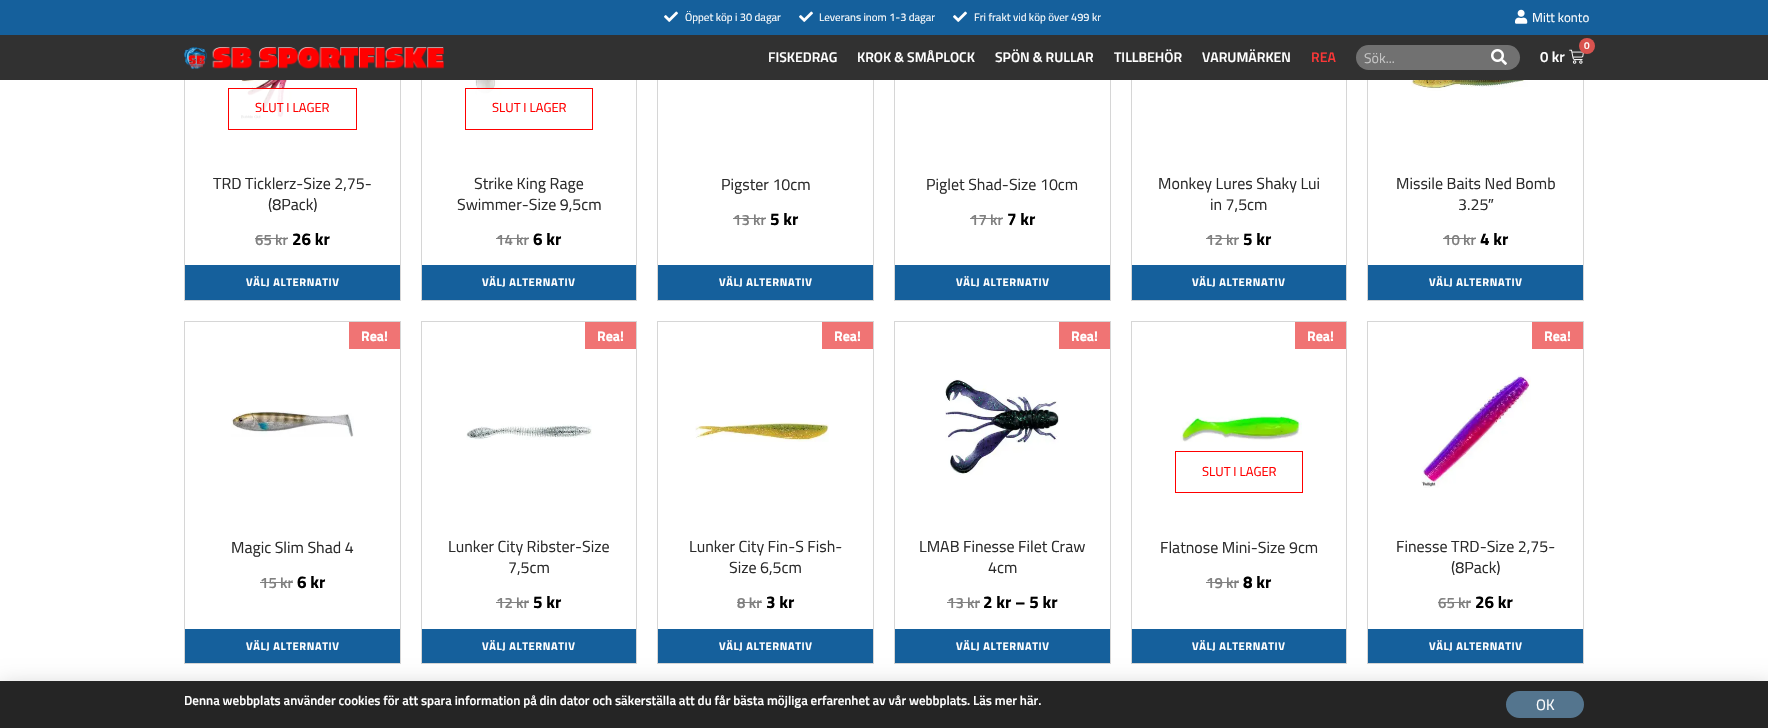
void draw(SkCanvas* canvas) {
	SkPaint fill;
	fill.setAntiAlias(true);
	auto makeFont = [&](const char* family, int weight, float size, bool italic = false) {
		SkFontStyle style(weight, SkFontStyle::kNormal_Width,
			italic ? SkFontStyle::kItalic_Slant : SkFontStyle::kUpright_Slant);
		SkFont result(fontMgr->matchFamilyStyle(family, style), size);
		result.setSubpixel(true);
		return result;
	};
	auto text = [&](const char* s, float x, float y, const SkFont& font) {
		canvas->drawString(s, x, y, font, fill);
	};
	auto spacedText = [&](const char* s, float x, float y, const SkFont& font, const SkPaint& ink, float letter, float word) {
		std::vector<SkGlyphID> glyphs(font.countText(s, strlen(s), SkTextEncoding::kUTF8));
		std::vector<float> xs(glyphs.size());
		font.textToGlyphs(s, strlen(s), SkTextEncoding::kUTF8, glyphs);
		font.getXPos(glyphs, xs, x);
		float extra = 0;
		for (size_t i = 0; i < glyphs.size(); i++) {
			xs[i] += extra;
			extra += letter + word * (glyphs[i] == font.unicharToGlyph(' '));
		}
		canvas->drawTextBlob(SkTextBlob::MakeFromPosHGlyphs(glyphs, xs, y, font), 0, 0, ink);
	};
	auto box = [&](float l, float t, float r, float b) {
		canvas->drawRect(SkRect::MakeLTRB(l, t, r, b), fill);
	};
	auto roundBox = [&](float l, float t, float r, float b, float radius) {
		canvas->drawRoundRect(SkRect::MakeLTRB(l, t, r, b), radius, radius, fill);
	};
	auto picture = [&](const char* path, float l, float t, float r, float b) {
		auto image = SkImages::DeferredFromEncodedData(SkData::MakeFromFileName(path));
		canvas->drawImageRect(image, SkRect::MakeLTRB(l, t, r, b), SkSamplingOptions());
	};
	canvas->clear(0xFFFFFFFF);
	fill.setStyle(SkPaint::kStroke_Style);
	fill.setStrokeWidth(1);
	fill.setColor(0xFFD6D6D6);
	canvas->drawRect(SkRect::MakeLTRB(184.5f, -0.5f, 400.5f, 300.5f), fill);
	canvas->drawRect(SkRect::MakeLTRB(421.5f, -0.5f, 636.5f, 300.5f), fill);
	canvas->drawRect(SkRect::MakeLTRB(657.5f, -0.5f, 873.5f, 300.5f), fill);
	canvas->drawRect(SkRect::MakeLTRB(894.5f, -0.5f, 1110.5f, 300.5f), fill);
	canvas->drawRect(SkRect::MakeLTRB(1131.5f, -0.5f, 1346.5f, 300.5f), fill);
	canvas->drawRect(SkRect::MakeLTRB(1367.5f, -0.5f, 1583.5f, 300.5f), fill);
	fill.setStyle(SkPaint::kFill_Style);
	fill.setColor(0xFF15609C);
	box(0, 0, 1768, 35);
	picture("image0.png", 664, 11, 678, 22);
	picture("image0.png", 799, 11, 813, 22);
	picture("image0.png", 953, 11, 967, 22);
	picture("image1.png", 1515, 9, 1528, 24);
	fill.setColor(0xFF313131);
	box(0, 35, 1768, 80);
	picture("image2.png", 184, 47, 444, 69);
	fill.setColor(0xFF717171);
	roundBox(1356, 45, 1520, 70, 12.5f);
	picture("image3.png", 1491, 49, 1507, 65);
	picture("image4.png", 1569, 49, 1584, 64);
	fill.setColor(0xFFD9534F);
	canvas->drawCircle(1587, 46, 8, fill);
	picture("image5.png", 240, 80, 345, 120);
	fill.setColor(0xE0FFFFFF);
	box(240, 89, 289, 120);
	fill.setStyle(SkPaint::kStroke_Style);
	fill.setColor(0xFFFF0000);
	canvas->drawRect(SkRect::MakeLTRB(228.5f, 88.5f, 356.5f, 129.5f), fill);
	fill.setStyle(SkPaint::kFill_Style);
	fill.setColor(0xFF808080);
	box(255, 238, 288, 239);
	fill.setColor(0xFF15609C);
	box(185, 265, 400, 300);
	picture("image6.png", 475, 80, 575, 95);
	fill.setColor(0xE0FFFFFF);
	box(477, 89, 499, 95);
	fill.setStyle(SkPaint::kStroke_Style);
	fill.setColor(0xFFFF0000);
	canvas->drawRect(SkRect::MakeLTRB(465.5f, 88.5f, 592.5f, 129.5f), fill);
	fill.setStyle(SkPaint::kFill_Style);
	fill.setColor(0xFF808080);
	box(496, 238, 529, 239);
	fill.setColor(0xFF15609C);
	box(422, 265, 636, 300);
	fill.setColor(0xFF808080);
	box(733, 218, 766, 219);
	fill.setColor(0xFF15609C);
	box(658, 265, 873, 300);
	fill.setColor(0xFF808080);
	box(970, 218, 1003, 219);
	fill.setColor(0xFF15609C);
	box(895, 265, 1110, 300);
	fill.setColor(0xFF808080);
	box(1206, 238, 1239, 239);
	fill.setColor(0xFF15609C);
	box(1132, 265, 1346, 300);
	picture("image7.png", 1411, 80, 1539, 91);
	fill.setColor(0xFF808080);
	box(1443, 238, 1476, 239);
	fill.setColor(0xFF15609C);
	box(1368, 265, 1583, 300);
	fill.setStyle(SkPaint::kStroke_Style);
	fill.setColor(0xFFD6D6D6);
	canvas->drawRect(SkRect::MakeLTRB(184.5f, 321.5f, 400.5f, 663.5f), fill);
	fill.setStyle(SkPaint::kFill_Style);
	fill.setColor(0xFFF07474);
	box(349, 322, 400, 349);
	picture("image8.png", 231, 411, 354, 437);
	fill.setColor(0xFF808080);
	box(260, 582, 293, 583);
	fill.setColor(0xFF15609C);
	box(185, 629, 400, 663);
	fill.setStyle(SkPaint::kStroke_Style);
	fill.setColor(0xFFD6D6D6);
	canvas->drawRect(SkRect::MakeLTRB(421.5f, 321.5f, 636.5f, 663.5f), fill);
	fill.setStyle(SkPaint::kFill_Style);
	fill.setColor(0xFFF07474);
	box(585, 322, 636, 349);
	picture("image9.png", 466, 424, 592, 440);
	fill.setColor(0xFF808080);
	box(496, 602, 529, 603);
	fill.setColor(0xFF15609C);
	box(422, 629, 636, 663);
	fill.setStyle(SkPaint::kStroke_Style);
	fill.setColor(0xFFD6D6D6);
	canvas->drawRect(SkRect::MakeLTRB(657.5f, 321.5f, 873.5f, 663.5f), fill);
	fill.setStyle(SkPaint::kFill_Style);
	fill.setColor(0xFFF07474);
	box(822, 322, 873, 349);
	picture("image10.png", 695, 422, 829, 442);
	fill.setColor(0xFF808080);
	box(737, 602, 762, 603);
	fill.setColor(0xFF15609C);
	box(658, 629, 873, 663);
	fill.setStyle(SkPaint::kStroke_Style);
	fill.setColor(0xFFD6D6D6);
	canvas->drawRect(SkRect::MakeLTRB(894.5f, 321.5f, 1110.5f, 663.5f), fill);
	fill.setStyle(SkPaint::kFill_Style);
	fill.setColor(0xFFF07474);
	box(1059, 322, 1110, 349);
	picture("image11.png", 945, 379, 1059, 475);
	fill.setColor(0xFF808080);
	box(947, 602, 980, 603);
	fill.setColor(0xFF15609C);
	box(895, 629, 1110, 663);
	fill.setStyle(SkPaint::kStroke_Style);
	fill.setColor(0xFFD6D6D6);
	canvas->drawRect(SkRect::MakeLTRB(1131.5f, 321.5f, 1346.5f, 663.5f), fill);
	fill.setStyle(SkPaint::kFill_Style);
	fill.setColor(0xFFF07474);
	box(1295, 322, 1346, 349);
	picture("image12.png", 1180, 413, 1302, 442);
	fill.setStyle(SkPaint::kStroke_Style);
	fill.setColor(0xFFFF0000);
	canvas->drawRect(SkRect::MakeLTRB(1175.5f, 451.5f, 1302.5f, 492.5f), fill);
	fill.setStyle(SkPaint::kFill_Style);
	fill.setColor(0xFF808080);
	box(1206, 582, 1239, 583);
	fill.setColor(0xFF15609C);
	box(1132, 629, 1346, 663);
	fill.setStyle(SkPaint::kStroke_Style);
	fill.setColor(0xFFD6D6D6);
	canvas->drawRect(SkRect::MakeLTRB(1367.5f, 321.5f, 1583.5f, 663.5f), fill);
	fill.setStyle(SkPaint::kFill_Style);
	fill.setColor(0xFFF07474);
	box(1532, 322, 1583, 349);
	picture("image13.png", 1421, 375, 1531, 488);
	fill.setColor(0xFF808080);
	box(1438, 602, 1471, 603);
	fill.setColor(0xFF15609C);
	box(1368, 629, 1583, 663);
	fill.setColor(0x33000000);
	fill.setMaskFilter(SkMaskFilter::MakeBlur(kNormal_SkBlurStyle, 11.5f));
	canvas->drawRect(SkRect::MakeLTRB(-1, 686, 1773, 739), fill);
	fill.setMaskFilter(nullptr);
	fill.setColor(0xFF252525);
	box(0, 681, 1768, 728);
	fill.setColor(0xFF54758E);
	roundBox(1506, 691, 1584, 718, 13.5f);
	auto font1 = makeFont("Titillium Web", 400, 11);
	fill.setColor(0xFFFFFFFF);
	text("Öppet köp i 30 dagar", 685, 21, font1);
	text("Leverans inom 1-3 dagar", 819, 21, font1);
	text("Fri frakt vid köp över 499 kr", 974, 21, font1);
	auto font2 = makeFont("Titillium Web", 400, 13);
	text("Mitt konto", 1532, 22, font2);
	auto font3 = makeFont("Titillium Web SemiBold", 600, 14);
	text("FISKEDRAG", 768, 62, font3);
	text("KROK & SMÅPLOCK", 857, 62, font3);
	text("SPÖN & RULLAR", 995, 62, font3);
	text("TILLBEHÖR", 1114, 62, font3);
	text("VARUMÄRKEN", 1202, 62, font3);
	fill.setColor(0xFFFB3737);
	text("REA", 1311, 62, font3);
	auto font4 = makeFont("Titillium Web", 400, 14);
	fill.setColor(0xFFC6C6C6);
	text("Sök...", 1364, 63, font4);
	auto font5 = makeFont("Titillium Web SemiBold", 600, 10);
	fill.setColor(0xFFFFFFFF);
	text("0", 1584, 49, font5);
	auto font6 = makeFont("Titillium Web SemiBold", 600, 15);
	text("0 kr", 1540, 62, font6);
	fill.setColor(0xFFFF0000);
	text("SLUT I LAGER", 255, 112, font2);
	auto font7 = makeFont("Titillium Web", 400, 16);
	fill.setColor(0xFF2B2B2B);
	text("TRD Ticklerz-Size 2,75-", 213, 189, font7);
	text("(8Pack)", 268, 210, font7);
	fill.setColor(0xFF808080);
	text("65 kr", 255, 245, font6);
	auto font8 = makeFont("Titillium Web", 700, 17);
	fill.setColor(0xFF000000);
	text("26 kr", 292, 245, font8);
	auto font9 = makeFont("Titillium Web", 700, 11);
	fill.setColor(0xFFFFFFFF);
	spacedText("VÄLJ ALTERNATIV", 246, 286, font9, fill, 0.6f, 0);
	fill.setColor(0xFFFF0000);
	text("SLUT I LAGER", 492, 112, font2);
	fill.setColor(0xFF2B2B2B);
	text("Strike King Rage", 474, 189, font7);
	text("Swimmer-Size 9,5cm", 457, 210, font7);
	fill.setColor(0xFF808080);
	text("14 kr", 496, 245, font6);
	fill.setColor(0xFF000000);
	text("6 kr", 533, 245, font8);
	fill.setColor(0xFFFFFFFF);
	spacedText("VÄLJ ALTERNATIV", 482, 286, font9, fill, 0.6f, 0);
	fill.setColor(0xFF2B2B2B);
	text("Pigster 10cm", 721, 190, font7);
	fill.setColor(0xFF808080);
	text("13 kr", 733, 225, font6);
	fill.setColor(0xFF000000);
	text("5 kr", 770, 225, font8);
	fill.setColor(0xFFFFFFFF);
	spacedText("VÄLJ ALTERNATIV", 719, 286, font9, fill, 0.6f, 0);
	fill.setColor(0xFF2B2B2B);
	text("Piglet Shad-Size 10cm", 926, 190, font7);
	fill.setColor(0xFF808080);
	text("17 kr", 970, 225, font6);
	fill.setColor(0xFF000000);
	text("7 kr", 1007, 225, font8);
	fill.setColor(0xFFFFFFFF);
	spacedText("VÄLJ ALTERNATIV", 956, 286, font9, fill, 0.6f, 0);
	fill.setColor(0xFF2B2B2B);
	text("Monkey Lures Shaky Lui", 1158, 189, font7);
	text("in 7,5cm", 1210, 210, font7);
	fill.setColor(0xFF808080);
	text("12 kr", 1206, 245, font6);
	fill.setColor(0xFF000000);
	text("5 kr", 1243, 245, font8);
	fill.setColor(0xFFFFFFFF);
	spacedText("VÄLJ ALTERNATIV", 1192, 286, font9, fill, 0.6f, 0);
	fill.setColor(0xFF2B2B2B);
	text("Missile Baits Ned Bomb", 1396, 189, font7);
	text("3.25", 1458, 210, font7);
	auto font10 = makeFont("Liberation Sans", 400, 16);
	text("″", 1488, 210, font10);
	fill.setColor(0xFF808080);
	text("10 kr", 1443, 245, font6);
	fill.setColor(0xFF000000);
	text("4 kr", 1480, 245, font8);
	fill.setColor(0xFFFFFFFF);
	spacedText("VÄLJ ALTERNATIV", 1429, 286, font9, fill, 0.6f, 0);
	auto font11 = makeFont("Titillium Web", 700, 14);
	text("Rea!", 361, 341, font11);
	fill.setColor(0xFF2B2B2B);
	text("Magic Slim Shad 4", 231, 553, font7);
	fill.setColor(0xFF808080);
	text("15 kr", 260, 588, font6);
	fill.setColor(0xFF000000);
	text("6 kr", 297, 588, font8);
	fill.setColor(0xFFFFFFFF);
	spacedText("VÄLJ ALTERNATIV", 246, 650, font9, fill, 0.6f, 0);
	text("Rea!", 597, 341, font11);
	fill.setColor(0xFF2B2B2B);
	text("Lunker City Ribster-Size", 448, 552, font7);
	text("7,5cm", 508, 573, font7);
	fill.setColor(0xFF808080);
	text("12 kr", 496, 608, font6);
	fill.setColor(0xFF000000);
	text("5 kr", 533, 608, font8);
	fill.setColor(0xFFFFFFFF);
	spacedText("VÄLJ ALTERNATIV", 482, 650, font9, fill, 0.6f, 0);
	text("Rea!", 834, 341, font11);
	fill.setColor(0xFF2B2B2B);
	text("Lunker City Fin-S Fish-", 689, 552, font7);
	text("Size 6,5cm", 729, 573, font7);
	fill.setColor(0xFF808080);
	text("8 kr", 737, 608, font6);
	fill.setColor(0xFF000000);
	text("3 kr", 766, 608, font8);
	fill.setColor(0xFFFFFFFF);
	spacedText("VÄLJ ALTERNATIV", 719, 650, font9, fill, 0.6f, 0);
	text("Rea!", 1071, 341, font11);
	fill.setColor(0xFF2B2B2B);
	text("LMAB Finesse Filet Craw", 919, 552, font7);
	text("4cm", 988, 573, font7);
	fill.setColor(0xFF808080);
	text("13 kr", 947, 608, font6);
	fill.setColor(0xFF000000);
	text("2 kr – 5 kr", 983, 608, font8);
	fill.setColor(0xFFFFFFFF);
	spacedText("VÄLJ ALTERNATIV", 956, 650, font9, fill, 0.6f, 0);
	text("Rea!", 1307, 341, font11);
	fill.setColor(0xFFFF0000);
	text("SLUT I LAGER", 1202, 476, font2);
	fill.setColor(0xFF2B2B2B);
	text("Flatnose Mini-Size 9cm", 1160, 553, font7);
	fill.setColor(0xFF808080);
	text("19 kr", 1206, 588, font6);
	fill.setColor(0xFF000000);
	text("8 kr", 1243, 588, font8);
	fill.setColor(0xFFFFFFFF);
	spacedText("VÄLJ ALTERNATIV", 1192, 650, font9, fill, 0.6f, 0);
	text("Rea!", 1544, 341, font11);
	fill.setColor(0xFF2B2B2B);
	text("Finesse TRD-Size 2,75-", 1396, 552, font7);
	text("(8Pack)", 1451, 573, font7);
	fill.setColor(0xFF808080);
	text("65 kr", 1438, 608, font6);
	fill.setColor(0xFF000000);
	text("26 kr", 1475, 608, font8);
	fill.setColor(0xFFFFFFFF);
	spacedText("VÄLJ ALTERNATIV", 1429, 650, font9, fill, 0.6f, 0);
	auto font12 = makeFont("Titillium Web SemiBold", 600, 13);
	text("Denna webbplats använder cookies för att spara information på din dator och säkerställa att du får bästa möjliga erfarenhet av vår webbplats. Läs mer här.", 184, 705, font12);
	auto font13 = makeFont("Titillium Web", 400, 15);
	text("OK", 1536, 710, font13);
}
